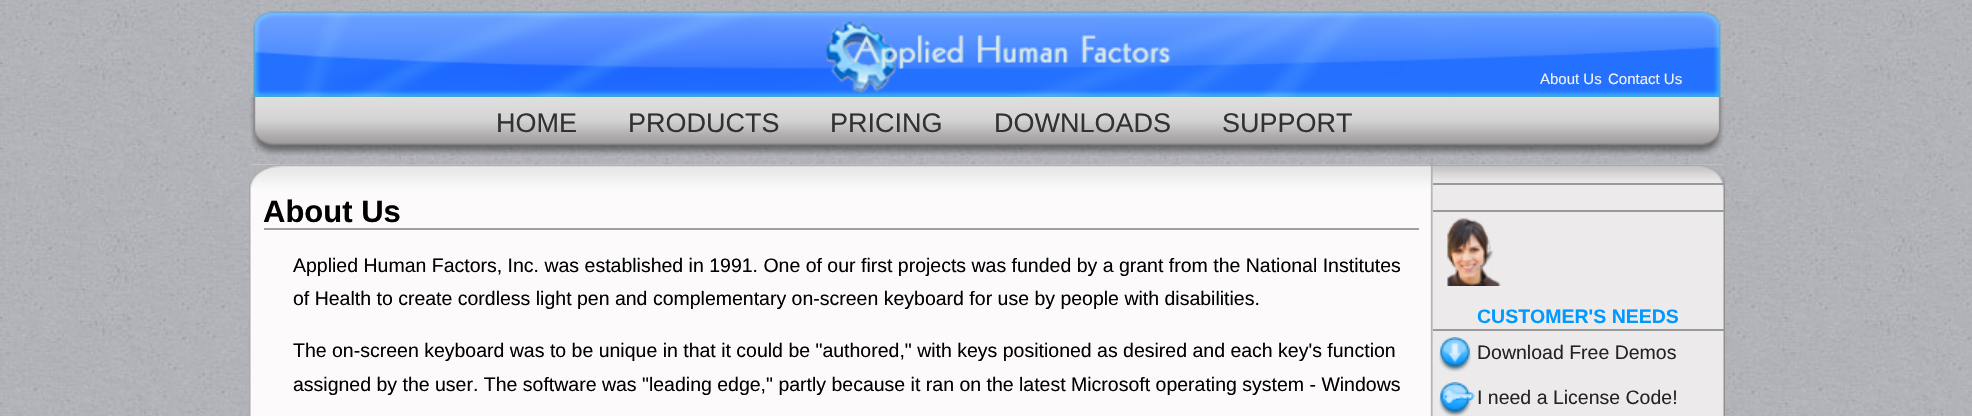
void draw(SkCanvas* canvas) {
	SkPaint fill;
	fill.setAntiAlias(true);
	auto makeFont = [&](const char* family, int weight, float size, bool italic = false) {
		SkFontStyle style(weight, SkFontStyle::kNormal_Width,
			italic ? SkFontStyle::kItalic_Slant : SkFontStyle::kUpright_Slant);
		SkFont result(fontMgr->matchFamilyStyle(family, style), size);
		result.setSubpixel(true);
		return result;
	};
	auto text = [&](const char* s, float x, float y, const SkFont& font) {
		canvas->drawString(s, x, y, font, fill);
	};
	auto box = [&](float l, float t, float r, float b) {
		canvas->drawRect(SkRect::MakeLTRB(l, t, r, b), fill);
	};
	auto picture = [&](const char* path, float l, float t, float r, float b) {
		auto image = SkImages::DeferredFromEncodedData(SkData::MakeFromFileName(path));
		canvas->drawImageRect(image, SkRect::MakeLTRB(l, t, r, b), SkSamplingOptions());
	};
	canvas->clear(0xFFFFFFFF);
	picture("image0.png", 0, 0, 1972, 416);
	picture("image1.png", 12, 11, 1961, 416);
	picture("image2.png", 253, 11, 1721, 97);
	picture("image3.png", 250, 97, 1724, 156);
	picture("image4.png", 249, 164, 1725, 416);
	picture("image5.png", 249, 164, 1725, 202);
	fill.setColor(0xFFA0A0A0);
	box(264, 228, 1419, 230);
	fill.setColor(0xFF999999);
	box(1433, 183, 1725, 185);
	box(1433, 210, 1725, 212);
	picture("image6.png", 1447, 218, 1501, 286);
	box(1433, 329, 1725, 331);
	picture("image7.png", 1439, 337, 1471, 372);
	picture("image8.png", 1439, 382, 1475, 416);
	auto font1 = makeFont("Liberation Sans", 400, 15);
	fill.setColor(0xFFF0F0F0);
	text("About Us", 1540, 84, font1);
	text("Contact Us", 1608, 84, font1);
	auto font2 = makeFont("Liberation Sans", 400, 27);
	fill.setColor(0xFF323232);
	text("HOME", 496, 132, font2);
	text("PRODUCTS", 628, 132, font2);
	text("PRICING", 830, 132, font2);
	text("DOWNLOADS", 994, 132, font2);
	text("SUPPORT", 1222, 132, font2);
	auto font3 = makeFont("Liberation Sans", 700, 31);
	fill.setColor(0xFF000000);
	text("About Us", 263, 222, font3);
	auto font4 = makeFont("Liberation Sans", 400, 19.5f);
	text("Applied Human Factors, Inc. was established in 1991. One of our first projects was funded by a grant from the National Institutes", 293, 272, font4);
	text("of Health to create cordless light pen and complementary on-screen keyboard for use by people with disabilities.", 293, 305, font4);
	text("The on-screen keyboard was to be unique in that it could be \"authored,\" with keys positioned as desired and each key's function", 293, 357, font4);
	text("assigned by the user. The software was \"leading edge,\" partly because it ran on the latest Microsoft operating system - Windows", 293, 391, font4);
	auto font5 = makeFont("Liberation Sans", 700, 19.5f);
	fill.setColor(0xFF0099FF);
	text("CUSTOMER'S NEEDS", 1477, 323, font5);
	fill.setColor(0xFF242424);
	text("Download Free Demos", 1477, 359, font4);
	text("I need a License Code!", 1477, 404, font4);
}
